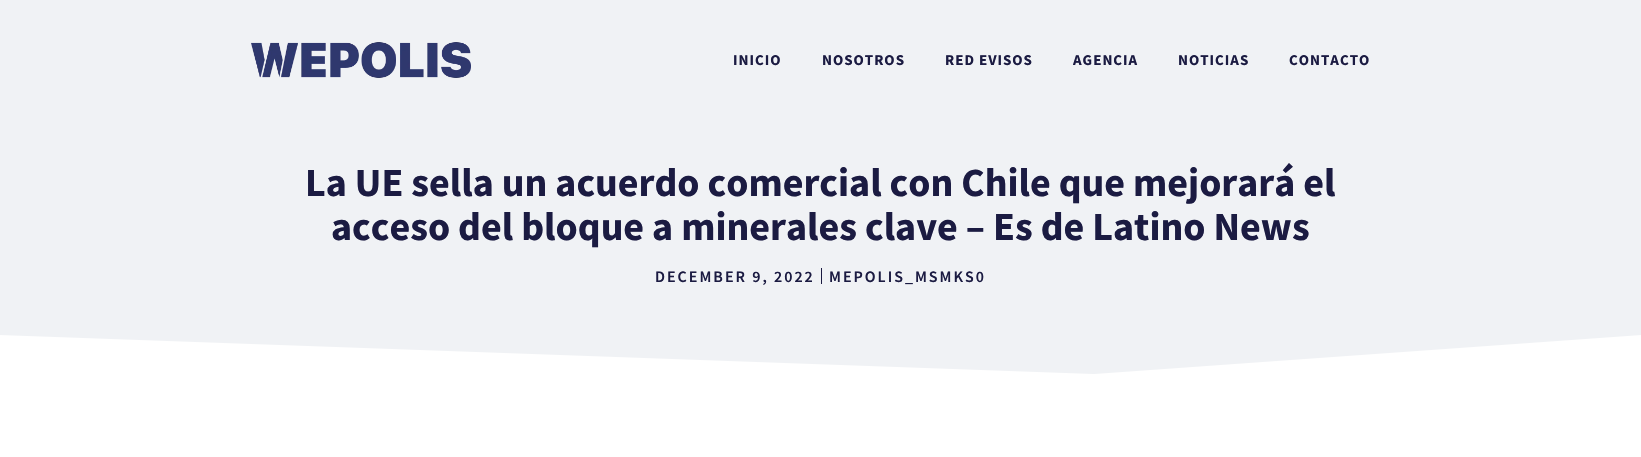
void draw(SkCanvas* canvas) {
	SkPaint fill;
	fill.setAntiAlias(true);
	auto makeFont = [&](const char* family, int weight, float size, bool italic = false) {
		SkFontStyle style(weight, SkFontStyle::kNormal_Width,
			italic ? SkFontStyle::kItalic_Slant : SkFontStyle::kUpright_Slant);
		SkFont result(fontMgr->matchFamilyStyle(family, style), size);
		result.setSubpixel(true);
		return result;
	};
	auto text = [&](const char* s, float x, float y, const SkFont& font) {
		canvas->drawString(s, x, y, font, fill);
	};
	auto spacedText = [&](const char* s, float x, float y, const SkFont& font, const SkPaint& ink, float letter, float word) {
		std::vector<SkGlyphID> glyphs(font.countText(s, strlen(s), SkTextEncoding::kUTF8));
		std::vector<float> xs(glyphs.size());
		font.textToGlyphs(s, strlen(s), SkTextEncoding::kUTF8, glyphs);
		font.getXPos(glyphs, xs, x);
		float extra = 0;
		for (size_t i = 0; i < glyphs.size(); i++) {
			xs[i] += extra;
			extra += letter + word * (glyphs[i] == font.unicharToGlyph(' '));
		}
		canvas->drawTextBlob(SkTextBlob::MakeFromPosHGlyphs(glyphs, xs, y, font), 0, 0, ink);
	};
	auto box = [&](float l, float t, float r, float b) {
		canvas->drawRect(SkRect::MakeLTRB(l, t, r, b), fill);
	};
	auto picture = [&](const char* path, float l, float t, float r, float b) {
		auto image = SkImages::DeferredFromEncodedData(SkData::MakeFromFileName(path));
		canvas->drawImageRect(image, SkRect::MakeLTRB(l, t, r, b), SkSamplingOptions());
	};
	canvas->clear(0xFFFFFFFF);
	fill.setColor(0xFFF0F2F5);
	box(0, 0, 1641, 374);
	picture("image0.png", 251, 42, 471, 78);
	fill.setColor(0xFF1B1B42);
	box(821, 268, 822, 284);
	fill.setColor(0xFFFFFFFF);
	canvas->drawPath(SkPathBuilder().moveTo(-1, 385).lineTo(1641, 385).lineTo(1641, 335).lineTo(1094, 374).lineTo(-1, 335).close().detach(), fill);
	auto font1 = makeFont("Source Sans Pro", 700, 15);
	fill.setColor(0xFF1B1B42);
	spacedText("INICIO", 733, 65, font1, fill, 1, 0);
	spacedText("NOSOTROS", 822, 65, font1, fill, 1, 0);
	spacedText("RED EVISOS", 945, 65, font1, fill, 1, 0);
	spacedText("AGENCIA", 1073, 65, font1, fill, 1, 0);
	spacedText("NOTICIAS", 1178, 65, font1, fill, 1, 0);
	spacedText("CONTACTO", 1289, 65, font1, fill, 1, 0);
	auto font2 = makeFont("Source Sans Pro", 700, 40);
	text("La UE sella un acuerdo comercial con Chile que mejorará el", 305, 196, font2);
	text("acceso del bloque a minerales clave – Es de Latino News", 331, 240, font2);
	auto font3 = makeFont("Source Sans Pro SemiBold", 600, 16);
	spacedText("DECEMBER 9, 2022", 655, 282, font3, fill, 2, 0);
	spacedText("MEPOLIS_MSMKS0", 829, 282, font3, fill, 2, 0);
}
